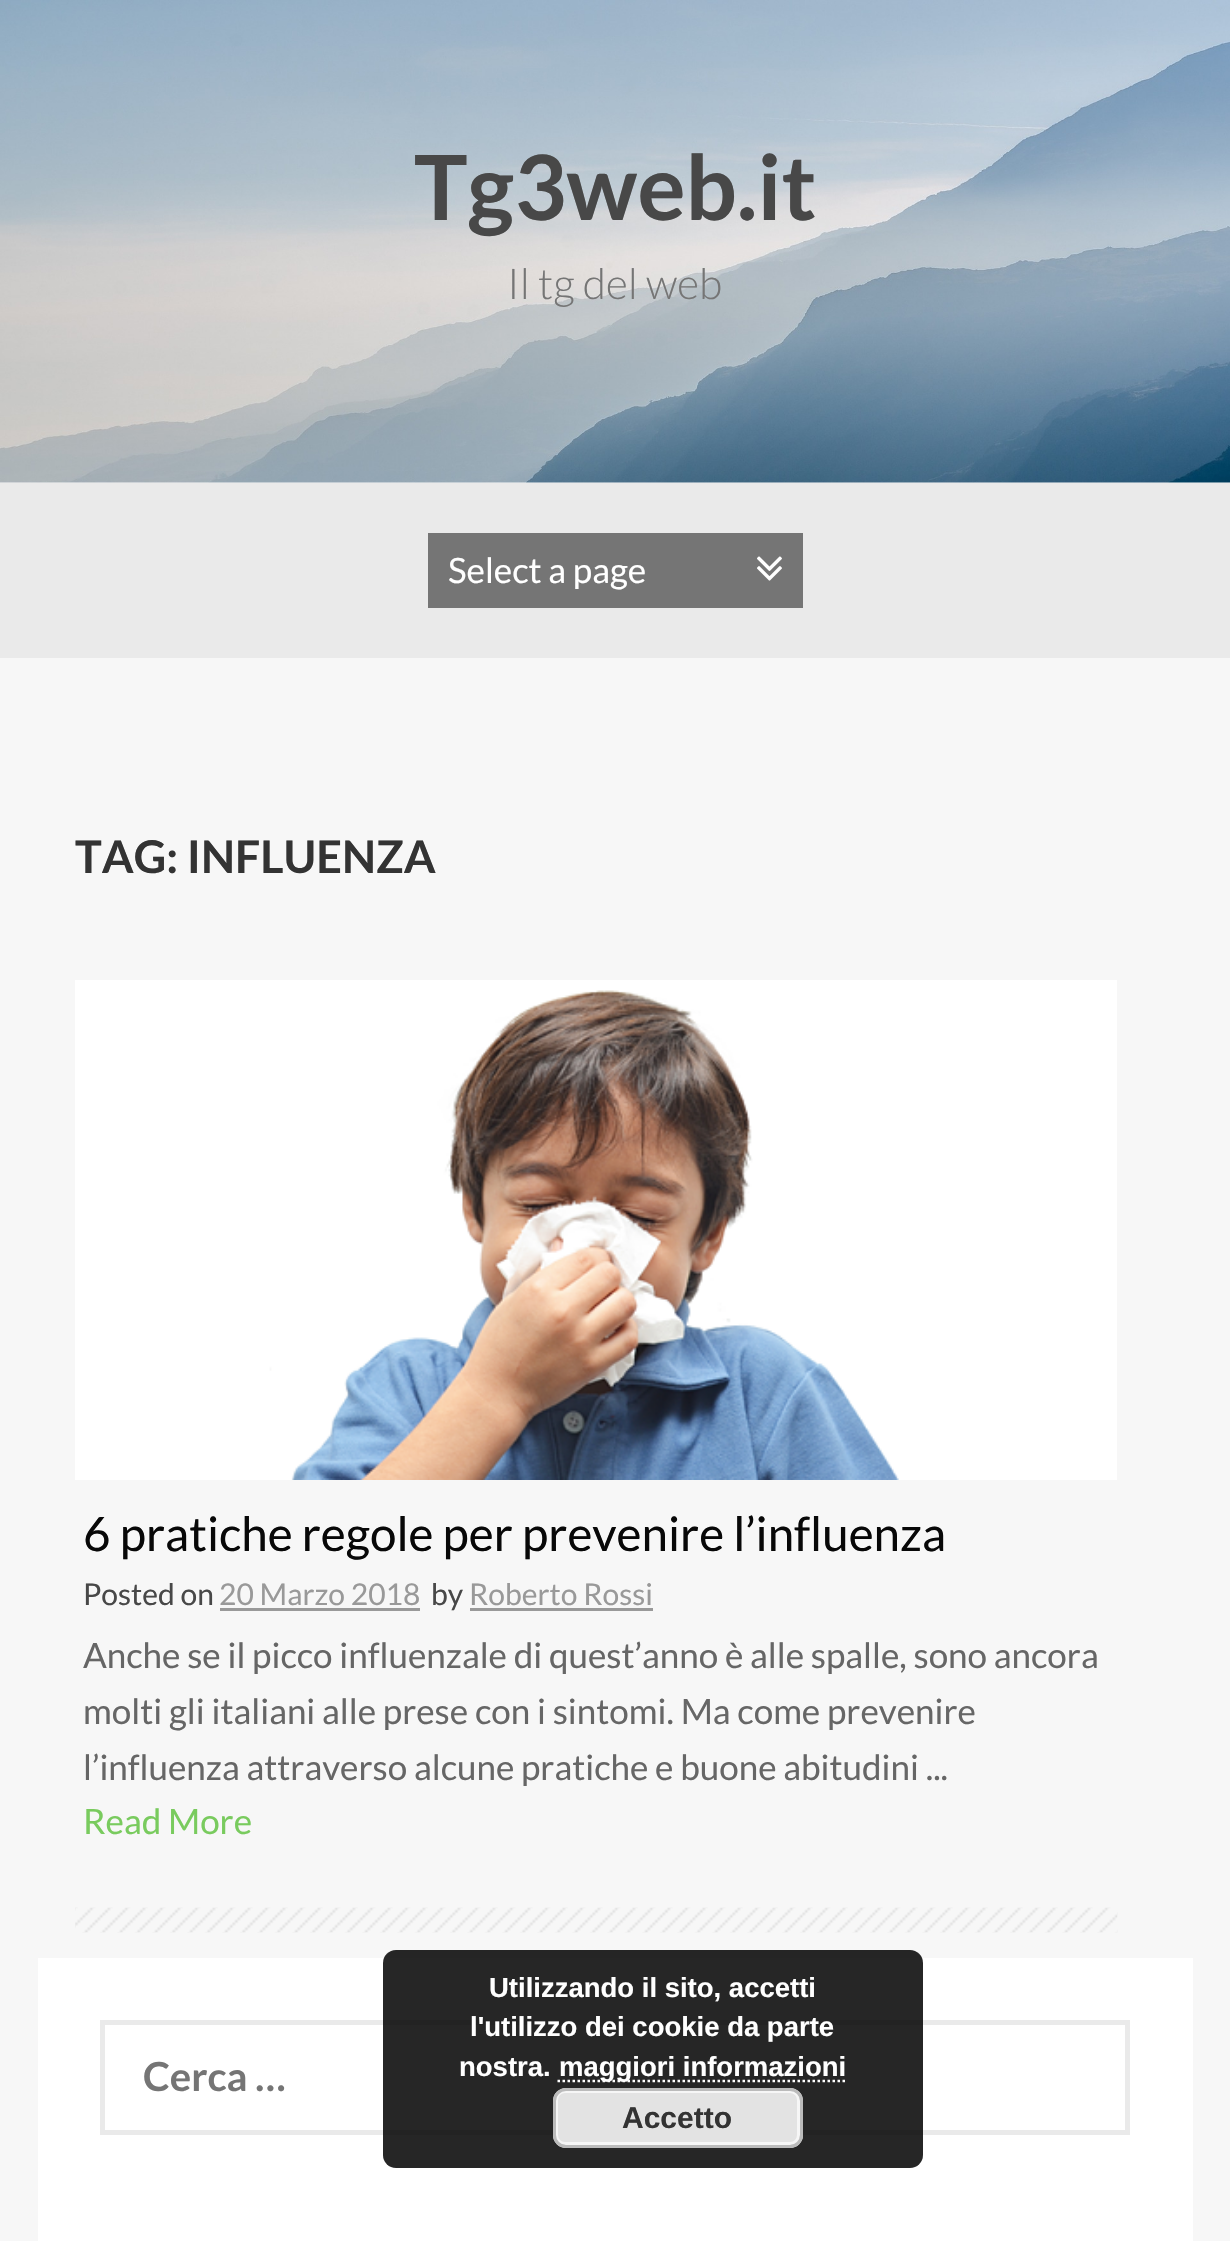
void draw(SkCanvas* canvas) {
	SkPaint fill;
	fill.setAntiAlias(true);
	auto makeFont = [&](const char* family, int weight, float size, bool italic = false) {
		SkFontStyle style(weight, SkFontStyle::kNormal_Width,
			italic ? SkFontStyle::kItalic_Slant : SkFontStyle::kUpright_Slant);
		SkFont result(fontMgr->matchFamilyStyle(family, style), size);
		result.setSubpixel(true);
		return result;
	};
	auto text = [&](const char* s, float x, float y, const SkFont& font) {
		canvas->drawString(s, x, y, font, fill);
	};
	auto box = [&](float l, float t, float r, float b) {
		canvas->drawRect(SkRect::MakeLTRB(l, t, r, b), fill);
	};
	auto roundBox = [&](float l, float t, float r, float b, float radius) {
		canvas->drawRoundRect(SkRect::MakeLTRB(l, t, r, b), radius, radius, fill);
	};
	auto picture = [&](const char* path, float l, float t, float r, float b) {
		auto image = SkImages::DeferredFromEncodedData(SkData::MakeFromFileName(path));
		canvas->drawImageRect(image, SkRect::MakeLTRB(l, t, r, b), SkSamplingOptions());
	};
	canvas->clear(0xFFF7F7F7);
	picture("image0.png", 0, 0, 1230, 483);
	fill.setColor(0xFFEAEAEA);
	box(0, 483, 1230, 658);
	fill.setColor(0xFF757575);
	box(428, 533, 803, 608);
	picture("image1.png", 757, 556, 782, 581);
	picture("image2.png", 75, 980, 1117, 1480);
	fill.setColor(0xFF999999);
	box(220, 1608, 420, 1611);
	box(470, 1608, 653, 1611);
	picture("image3.png", 75, 1907, 1118, 1933);
	fill.setColor(0xFFFFFFFF);
	box(38, 1958, 1193, 2241);
	fill.setStyle(SkPaint::kStroke_Style);
	fill.setStrokeWidth(5);
	fill.setColor(0xFFEAEAEA);
	canvas->drawRect(SkRect::MakeLTRB(102.5f, 2022.5f, 1127.5f, 2132.5f), fill);
	fill.setStyle(SkPaint::kFill_Style);
	fill.setColor(0xD9000000);
	roundBox(383, 1950, 923, 2168, 13);
	fill.setStyle(SkPaint::kStroke_Style);
	fill.setStrokeWidth(2.5f);
	fill.setColor(0xFFFFFFFF);
	fill.setPathEffect(SkDashPathEffect::Make({{2.5f, 2.5f}}, 0));
	canvas->drawPath(SkPathBuilder().moveTo(557.5f, 2081).lineTo(845, 2081).detach(), fill);
	fill.setPathEffect(nullptr);
	fill.setStyle(SkPaint::kFill_Style);
	fill.setColor(0xFFE3E3E3);
	roundBox(553, 2088, 803, 2148, 13);
	fill.setStyle(SkPaint::kStroke_Style);
	fill.setStrokeWidth(3);
	fill.setColor(0xFFF6F6F6);
	canvas->drawRoundRect(SkRect::MakeLTRB(556.5f, 2091.5f, 798.5f, 2143.5f), 8.5f, 8.5f, fill);
	fill.setColor(0xFFBBBBBB);
	canvas->drawRoundRect(SkRect::MakeLTRB(554.5f, 2089.5f, 801.5f, 2146.5f), 11.5f, 11.5f, fill);
	auto font1 = makeFont("Lato", 700, 90);
	fill.setStyle(SkPaint::kFill_Style);
	fill.setColor(0xFF484848);
	text("Tg3web.it", 414, 220, font1);
	auto font2 = makeFont("Lato", 300, 42.5f);
	fill.setColor(0xFF757575);
	text("Il tg del web", 507, 299, font2);
	auto font3 = makeFont("Lato", 400, 35);
	fill.setColor(0xFFFFFFFF);
	text("Select a page", 448, 583, font3);
	auto font4 = makeFont("Lato", 700, 45);
	fill.setColor(0xFF333333);
	text("TAG: INFLUENZA", 75, 873, font4);
	auto font5 = makeFont("Lato", 400, 47.5f);
	fill.setColor(0xFF080808);
	text("6 pratiche regole per prevenire l’influenza", 83, 1551, font5);
	auto font6 = makeFont("Lato", 400, 30);
	fill.setColor(0xFF484848);
	text("Posted on", 83, 1605, font6);
	fill.setColor(0xFF999999);
	text("20 Marzo 2018", 219, 1605, font6);
	fill.setColor(0xFF484848);
	text("by", 431, 1605, font6);
	fill.setColor(0xFF999999);
	text("Roberto Rossi", 469, 1605, font6);
	fill.setColor(0xFF666666);
	text("Anche se il picco influenzale di quest’anno è alle spalle, sono ancora", 83, 1668, font3);
	text("molti gli italiani alle prese con i sintomi. Ma come prevenire", 83, 1724, font3);
	text("l’influenza attraverso alcune pratiche e buone abitudini ...", 83, 1780, font3);
	fill.setColor(0xFF79CB5E);
	text("Read More", 83, 1834, font3);
	auto font7 = makeFont("Lato", 700, 40);
	fill.setColor(0xFF757575);
	text("Cerca …", 143, 2091, font7);
	auto font8 = makeFont("Liberation Sans", 700, 27.5f);
	fill.setColor(0xFFFFFFFF);
	text("Utilizzando il sito, accetti", 489, 1997, font8);
	text("l'utilizzo dei cookie da parte", 470, 2036, font8);
	text("nostra.", 459, 2076, font8);
	text("maggiori informazioni", 559, 2076, font8);
	auto font9 = makeFont("Liberation Sans", 700, 30);
	fill.setColor(0xFF333333);
	text("Accetto", 622, 2128, font9);
}
